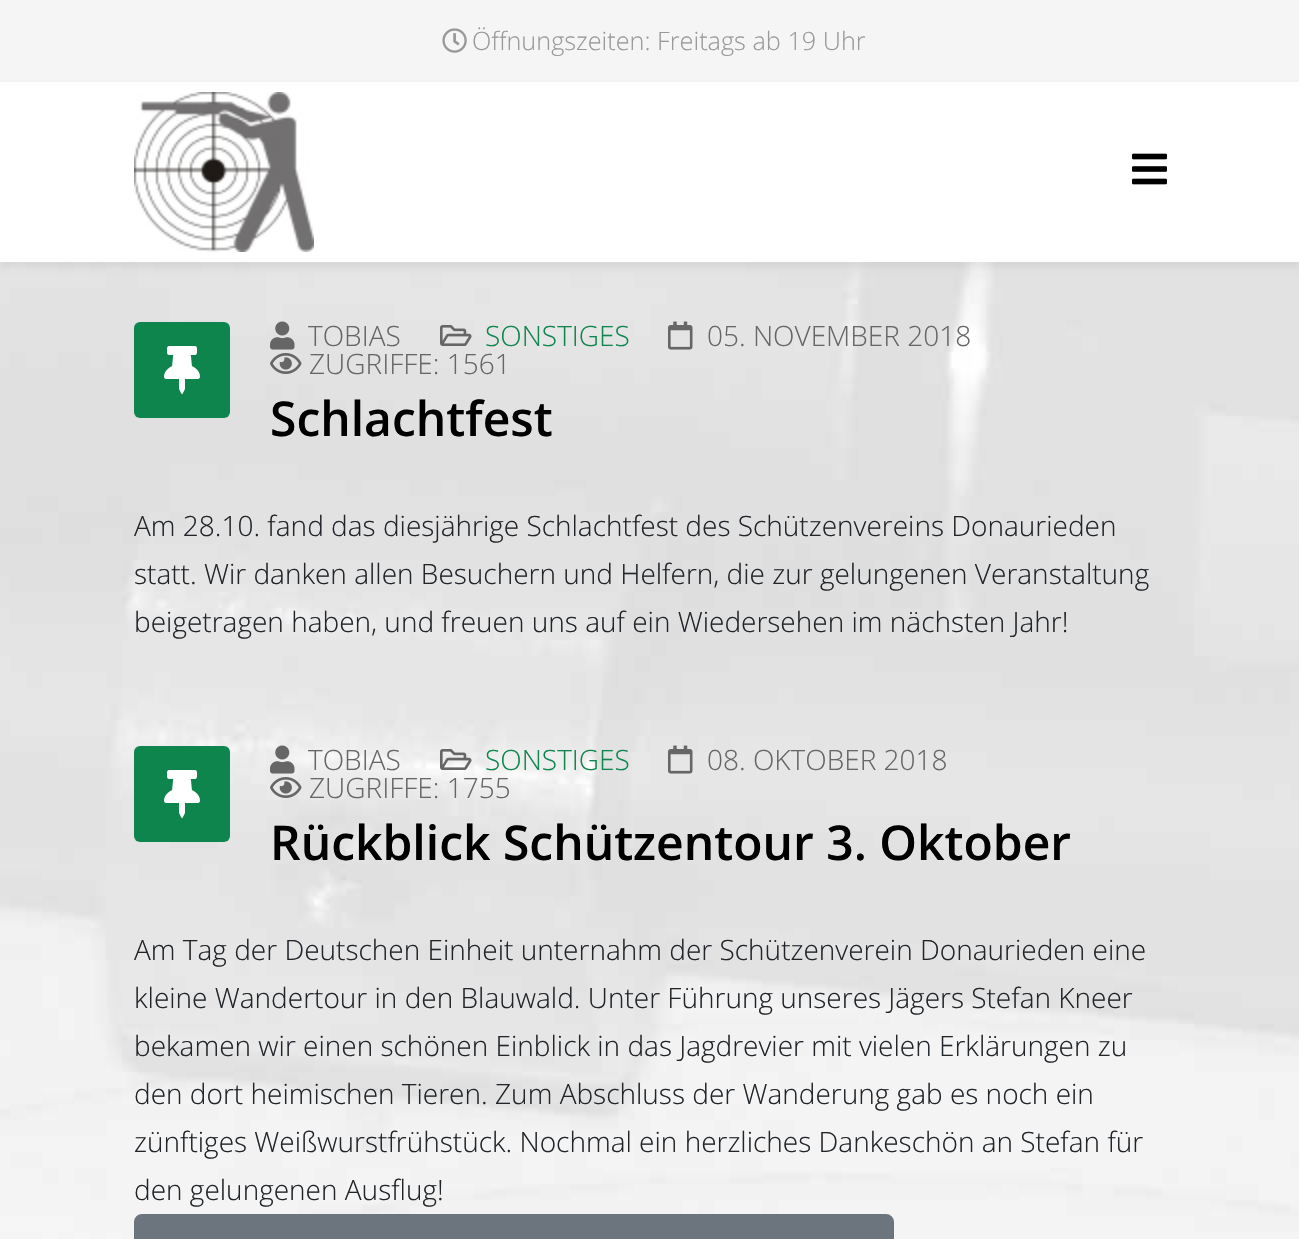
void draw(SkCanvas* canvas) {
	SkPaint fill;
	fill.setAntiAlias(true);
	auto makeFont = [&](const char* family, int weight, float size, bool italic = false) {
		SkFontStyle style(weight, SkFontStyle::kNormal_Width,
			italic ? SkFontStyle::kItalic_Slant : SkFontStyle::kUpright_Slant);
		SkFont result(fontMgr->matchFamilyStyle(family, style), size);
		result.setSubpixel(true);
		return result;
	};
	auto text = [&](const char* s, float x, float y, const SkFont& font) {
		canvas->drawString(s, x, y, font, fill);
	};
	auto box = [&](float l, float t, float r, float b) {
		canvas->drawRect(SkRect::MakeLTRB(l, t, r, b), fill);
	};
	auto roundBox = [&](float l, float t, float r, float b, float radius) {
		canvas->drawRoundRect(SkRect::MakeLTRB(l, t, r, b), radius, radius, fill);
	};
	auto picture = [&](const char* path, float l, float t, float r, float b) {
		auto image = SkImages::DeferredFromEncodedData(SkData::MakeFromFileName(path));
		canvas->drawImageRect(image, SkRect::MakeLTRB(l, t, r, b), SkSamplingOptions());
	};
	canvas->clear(0xFFFFFFFF);
	picture("image0.png", 0, 262, 1299, 1239);
	fill.setColor(0xFFF5F5F5);
	box(0, 0, 1299, 82);
	picture("image1.png", 442, 28, 467, 53);
	fill.setColor(0x0D000000);
	fill.setMaskFilter(SkMaskFilter::MakeBlur(kNormal_SkBlurStyle, 3));
	canvas->drawRect(SkRect::MakeLTRB(0, 88, 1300, 268), fill);
	fill.setMaskFilter(nullptr);
	fill.setColor(0xFFFFFFFF);
	box(0, 85, 1299, 262);
	picture("image2.png", 134, 92, 314, 252);
	picture("image3.png", 1132, 153, 1167, 185);
	fill.setColor(0xFF0D854D);
	roundBox(134, 322, 230, 418, 6);
	picture("image4.png", 164, 346, 200, 394);
	picture("image5.png", 270, 321, 295, 350);
	picture("image6.png", 440, 325, 472, 346);
	picture("image7.png", 668, 321, 693, 350);
	picture("image8.png", 270, 353, 302, 374);
	roundBox(134, 746, 230, 842, 6);
	picture("image4.png", 164, 770, 200, 818);
	picture("image9.png", 270, 745, 295, 774);
	picture("image10.png", 440, 749, 472, 770);
	picture("image11.png", 668, 745, 693, 774);
	picture("image12.png", 270, 777, 302, 798);
	fill.setColor(0xFF6C757D);
	canvas->drawRoundRect(SkRect::MakeLTRB(135, 1215, 893, 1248), 7, 7, fill);
	fill.setStyle(SkPaint::kStroke_Style);
	fill.setStrokeWidth(2);
	canvas->drawRoundRect(SkRect::MakeLTRB(135, 1215, 893, 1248), 7, 7, fill);
	auto font1 = makeFont("Open Sans", 300, 25.25f);
	fill.setStyle(SkPaint::kFill_Style);
	fill.setColor(0xFF999999);
	text("Öffnungszeiten: Freitags ab 19 Uhr", 472, 50, font1);
	auto font2 = makeFont("Open Sans", 300, 28);
	fill.setColor(0xFF666666);
	text("TOBIAS", 308, 346, font2);
	fill.setColor(0xFF0D854D);
	text("SONSTIGES", 485, 346, font2);
	fill.setColor(0xFF666666);
	text("05. NOVEMBER 2018", 707, 346, font2);
	text("ZUGRIFFE: 1561", 309, 374, font2);
	auto font3 = makeFont("Open Sans", 600, 48);
	fill.setColor(0xFF000000);
	text("Schlachtfest", 270, 436, font3);
	fill.setColor(0xFF212529);
	text("Am 28.10. fand das diesjährige Schlachtfest des Schützenvereins Donaurieden", 134, 536, font2);
	text("statt. Wir danken allen Besuchern und Helfern, die zur gelungenen Veranstaltung", 134, 584, font2);
	text("beigetragen haben, und freuen uns auf ein Wiedersehen im nächsten Jahr!", 134, 632, font2);
	fill.setColor(0xFF666666);
	text("TOBIAS", 308, 770, font2);
	fill.setColor(0xFF0D854D);
	text("SONSTIGES", 485, 770, font2);
	fill.setColor(0xFF666666);
	text("08. OKTOBER 2018", 707, 770, font2);
	text("ZUGRIFFE: 1755", 309, 798, font2);
	fill.setColor(0xFF000000);
	text("Rückblick Schützentour 3. Oktober", 270, 860, font3);
	fill.setColor(0xFF212529);
	text("Am Tag der Deutschen Einheit unternahm der Schützenverein Donaurieden eine", 134, 960, font2);
	text("kleine Wandertour in den Blauwald. Unter Führung unseres Jägers Stefan Kneer", 134, 1008, font2);
	text("bekamen wir einen schönen Einblick in das Jagdrevier mit vielen Erklärungen zu", 134, 1056, font2);
	text("den dort heimischen Tieren. Zum Abschluss der Wanderung gab es noch ein", 134, 1104, font2);
	text("zünftiges Weißwurstfrühstück. Nochmal ein herzliches Dankeschön an Stefan für", 134, 1152, font2);
	text("den gelungenen Ausflug!", 134, 1200, font2);
}
